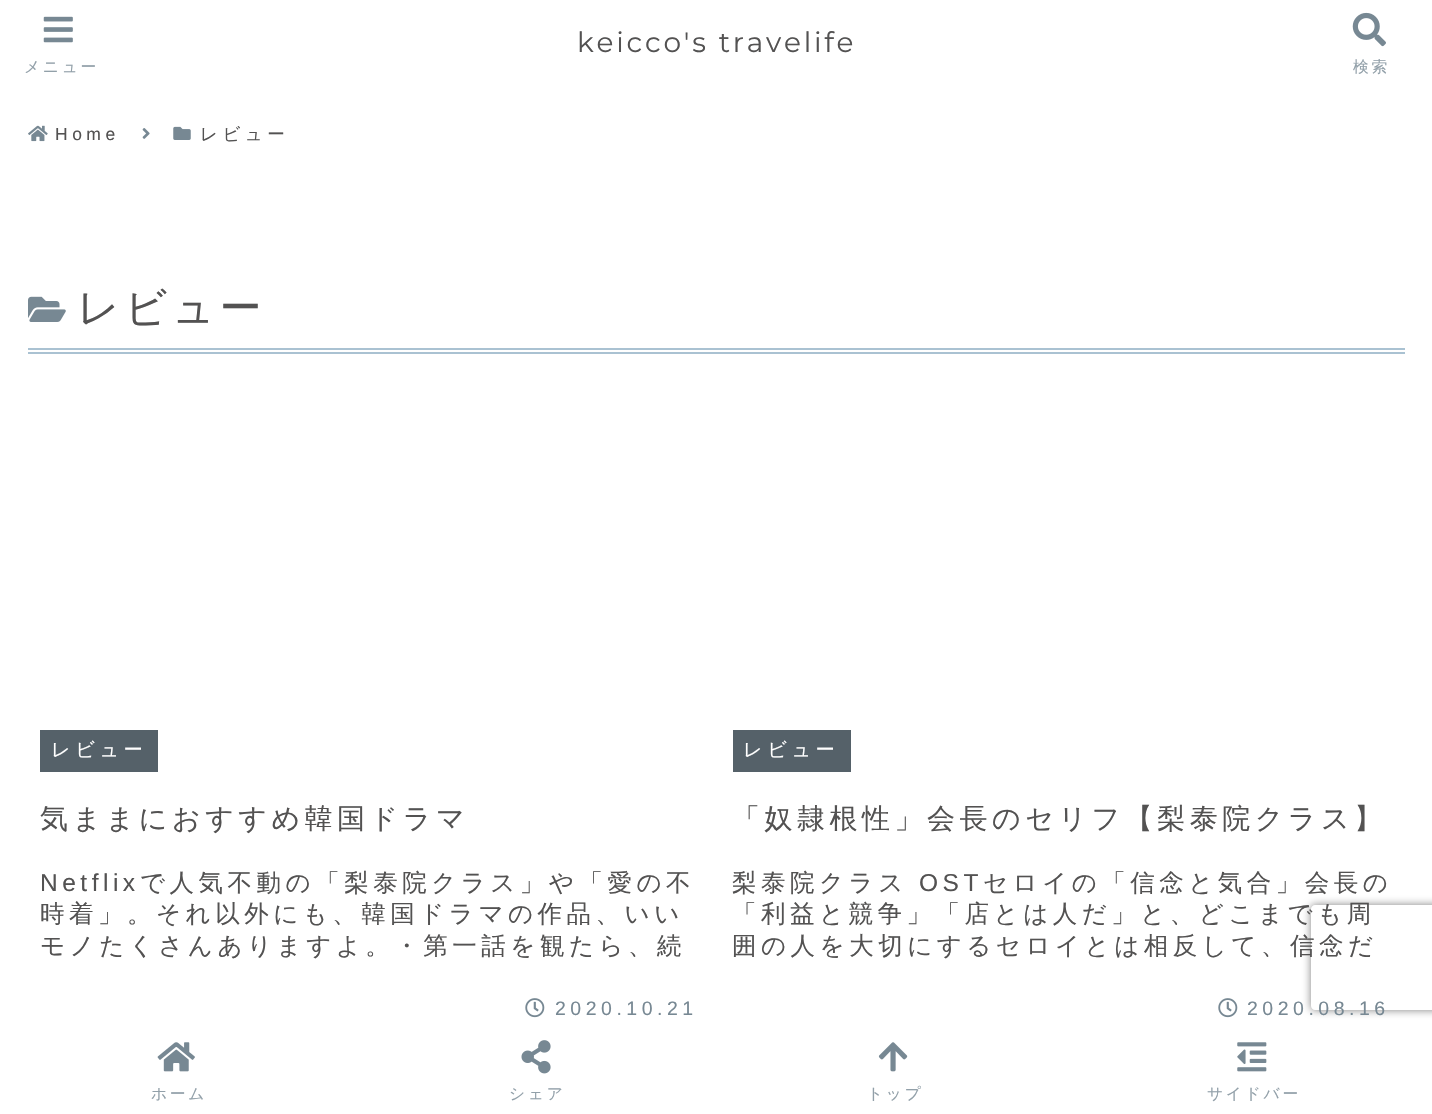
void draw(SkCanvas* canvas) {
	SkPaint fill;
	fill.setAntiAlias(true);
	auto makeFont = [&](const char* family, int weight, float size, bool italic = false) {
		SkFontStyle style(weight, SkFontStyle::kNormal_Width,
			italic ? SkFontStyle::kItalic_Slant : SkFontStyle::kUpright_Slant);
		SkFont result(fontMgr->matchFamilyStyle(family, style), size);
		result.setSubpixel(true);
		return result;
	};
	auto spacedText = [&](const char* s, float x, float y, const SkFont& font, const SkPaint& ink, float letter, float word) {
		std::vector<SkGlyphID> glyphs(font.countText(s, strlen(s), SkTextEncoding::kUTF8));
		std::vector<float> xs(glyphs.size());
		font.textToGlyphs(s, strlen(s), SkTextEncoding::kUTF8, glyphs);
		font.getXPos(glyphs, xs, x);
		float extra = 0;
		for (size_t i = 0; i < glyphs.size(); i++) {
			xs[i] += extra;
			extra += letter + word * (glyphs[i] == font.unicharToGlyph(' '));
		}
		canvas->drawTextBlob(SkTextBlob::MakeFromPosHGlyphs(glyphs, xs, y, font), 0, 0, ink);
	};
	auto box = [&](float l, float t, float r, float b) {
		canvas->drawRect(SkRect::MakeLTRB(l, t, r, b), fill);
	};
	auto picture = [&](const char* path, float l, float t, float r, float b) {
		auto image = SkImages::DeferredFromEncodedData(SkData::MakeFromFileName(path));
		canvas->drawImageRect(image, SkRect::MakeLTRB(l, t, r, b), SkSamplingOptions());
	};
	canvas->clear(0xFFFFFFFF);
	picture("image0.png", 43, 16, 73, 43);
	picture("image1.png", 1352, 12, 1386, 47);
	picture("image2.png", 28, 125, 48, 142);
	picture("image3.png", 142, 128, 150, 139);
	picture("image4.png", 173, 126, 191, 140);
	fill.setColor(0xFFAAC2D2);
	box(28, 348, 1405, 350);
	box(28, 352, 1405, 354);
	picture("image5.png", 28, 296, 66, 322);
	fill.setColor(0xFF556169);
	box(40, 730, 158, 772);
	picture("image6.png", 525, 998, 545, 1018);
	box(733, 730, 851, 772);
	picture("image6.png", 1218, 998, 1238, 1018);
	picture("image7.png", 157, 1042, 195, 1072);
	picture("image8.png", 521, 1040, 551, 1074);
	picture("image9.png", 878, 1042, 908, 1072);
	picture("image10.png", 1237, 1042, 1267, 1072);
	canvas->save();
	canvas->clipPath(SkPathBuilder(SkPathFillType::kEvenOdd).moveTo(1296, 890).lineTo(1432, 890).lineTo(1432, 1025).lineTo(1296, 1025).close().moveTo(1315, 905).lineTo(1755, 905).cubicTo(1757, 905, 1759, 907, 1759, 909).lineTo(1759, 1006).cubicTo(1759, 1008, 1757, 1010, 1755, 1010).lineTo(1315, 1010).cubicTo(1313, 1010, 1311, 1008, 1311, 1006).lineTo(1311, 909).cubicTo(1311, 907, 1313, 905, 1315, 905).close().detach(), true);
	fill.setColor(0xFF808080);
	fill.setMaskFilter(SkMaskFilter::MakeBlur(kNormal_SkBlurStyle, 4.5f));
	canvas->drawRoundRect(SkRect::MakeLTRB(1311, 905, 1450, 1010), 4, 4, fill);
	fill.setMaskFilter(nullptr);
	canvas->restore();
	auto font1 = makeFont("Montserrat", 400, 28);
	fill.setColor(0xFF535252);
	spacedText("keicco's travelife", 577, 52, font1, fill, 2.75f, 0);
	auto font2 = makeFont("WenQuanYi Zen Hei", 500, 15.75f);
	fill.setColor(0xFF92A0A9);
	spacedText("メニュー", 24, 72, font2, fill, 2.75f, 0);
	spacedText("検索", 1353, 72, font2, fill, 2.75f, 0);
	auto font3 = makeFont("Liberation Sans", 400, 17.5f);
	fill.setColor(0xFF535252);
	spacedText("Home", 55, 140, font3, fill, 4.5f, 0);
	auto font4 = makeFont("WenQuanYi Zen Hei", 500, 17.5f);
	spacedText("レビュー", 200, 140, font4, fill, 4.5f, 0);
	auto font5 = makeFont("WenQuanYi Zen Hei", 500, 42);
	spacedText("レビュー", 77, 322, font5, fill, 4.5f, 0);
	auto font6 = makeFont("WenQuanYi Zen Hei", 500, 19.25f);
	fill.setColor(0xFFFFFFFF);
	spacedText("レビュー", 51, 756, font6, fill, 4.5f, 0);
	auto font7 = makeFont("WenQuanYi Zen Hei", 500, 28);
	fill.setColor(0xFF535252);
	spacedText("気ままにおすすめ韓国ドラマ", 40, 828, font7, fill, 4.5f, 0);
	auto font8 = makeFont("Liberation Sans", 400, 24.5f);
	spacedText("Netflix", 40, 891, font8, fill, 4.5f, 0);
	auto font9 = makeFont("WenQuanYi Zen Hei", 500, 24.5f);
	spacedText("で人気不動の「梨泰院クラス」や「愛の不", 140, 891, font9, fill, 4.5f, 0);
	spacedText("時着」。それ以外にも、韓国ドラマの作品、いい", 40, 922, font9, fill, 4.5f, 0);
	spacedText("モノたくさんありますよ。・第一話を観たら、続", 40, 954, font9, fill, 4.5f, 0);
	auto font10 = makeFont("Liberation Sans", 400, 19.5f);
	fill.setColor(0xFF778893);
	spacedText("2020.10.21", 555, 1015, font10, fill, 4.5f, 0);
	fill.setColor(0xFFFFFFFF);
	spacedText("レビュー", 743, 756, font6, fill, 4.5f, 0);
	fill.setColor(0xFF535252);
	spacedText("「奴隷根性」会長のセリフ【梨泰院クラス】", 732, 828, font7, fill, 4.5f, 0);
	spacedText("梨泰院クラス", 732, 891, font9, fill, 4.5f, 0);
	spacedText("OST", 919, 891, font8, fill, 4.5f, 0);
	spacedText("セロイの「信念と気合」会長の", 983, 891, font9, fill, 4.5f, 0);
	spacedText("「利益と競争」「店とは人だ」と、どこまでも周", 732, 922, font9, fill, 4.5f, 0);
	spacedText("囲の人を大切にするセロイとは相反して、信念だ", 732, 954, font9, fill, 4.5f, 0);
	fill.setColor(0xFF778893);
	spacedText("2020.08.16", 1247, 1015, font10, fill, 4.5f, 0);
	fill.setColor(0xFF92A0A9);
	spacedText("ホーム", 151, 1099, font2, fill, 2.75f, 0);
	spacedText("シェア", 509, 1099, font2, fill, 2.75f, 0);
	spacedText("トップ", 867, 1099, font2, fill, 2.75f, 0);
	spacedText("サイドバー", 1207, 1099, font2, fill, 2.75f, 0);
}
